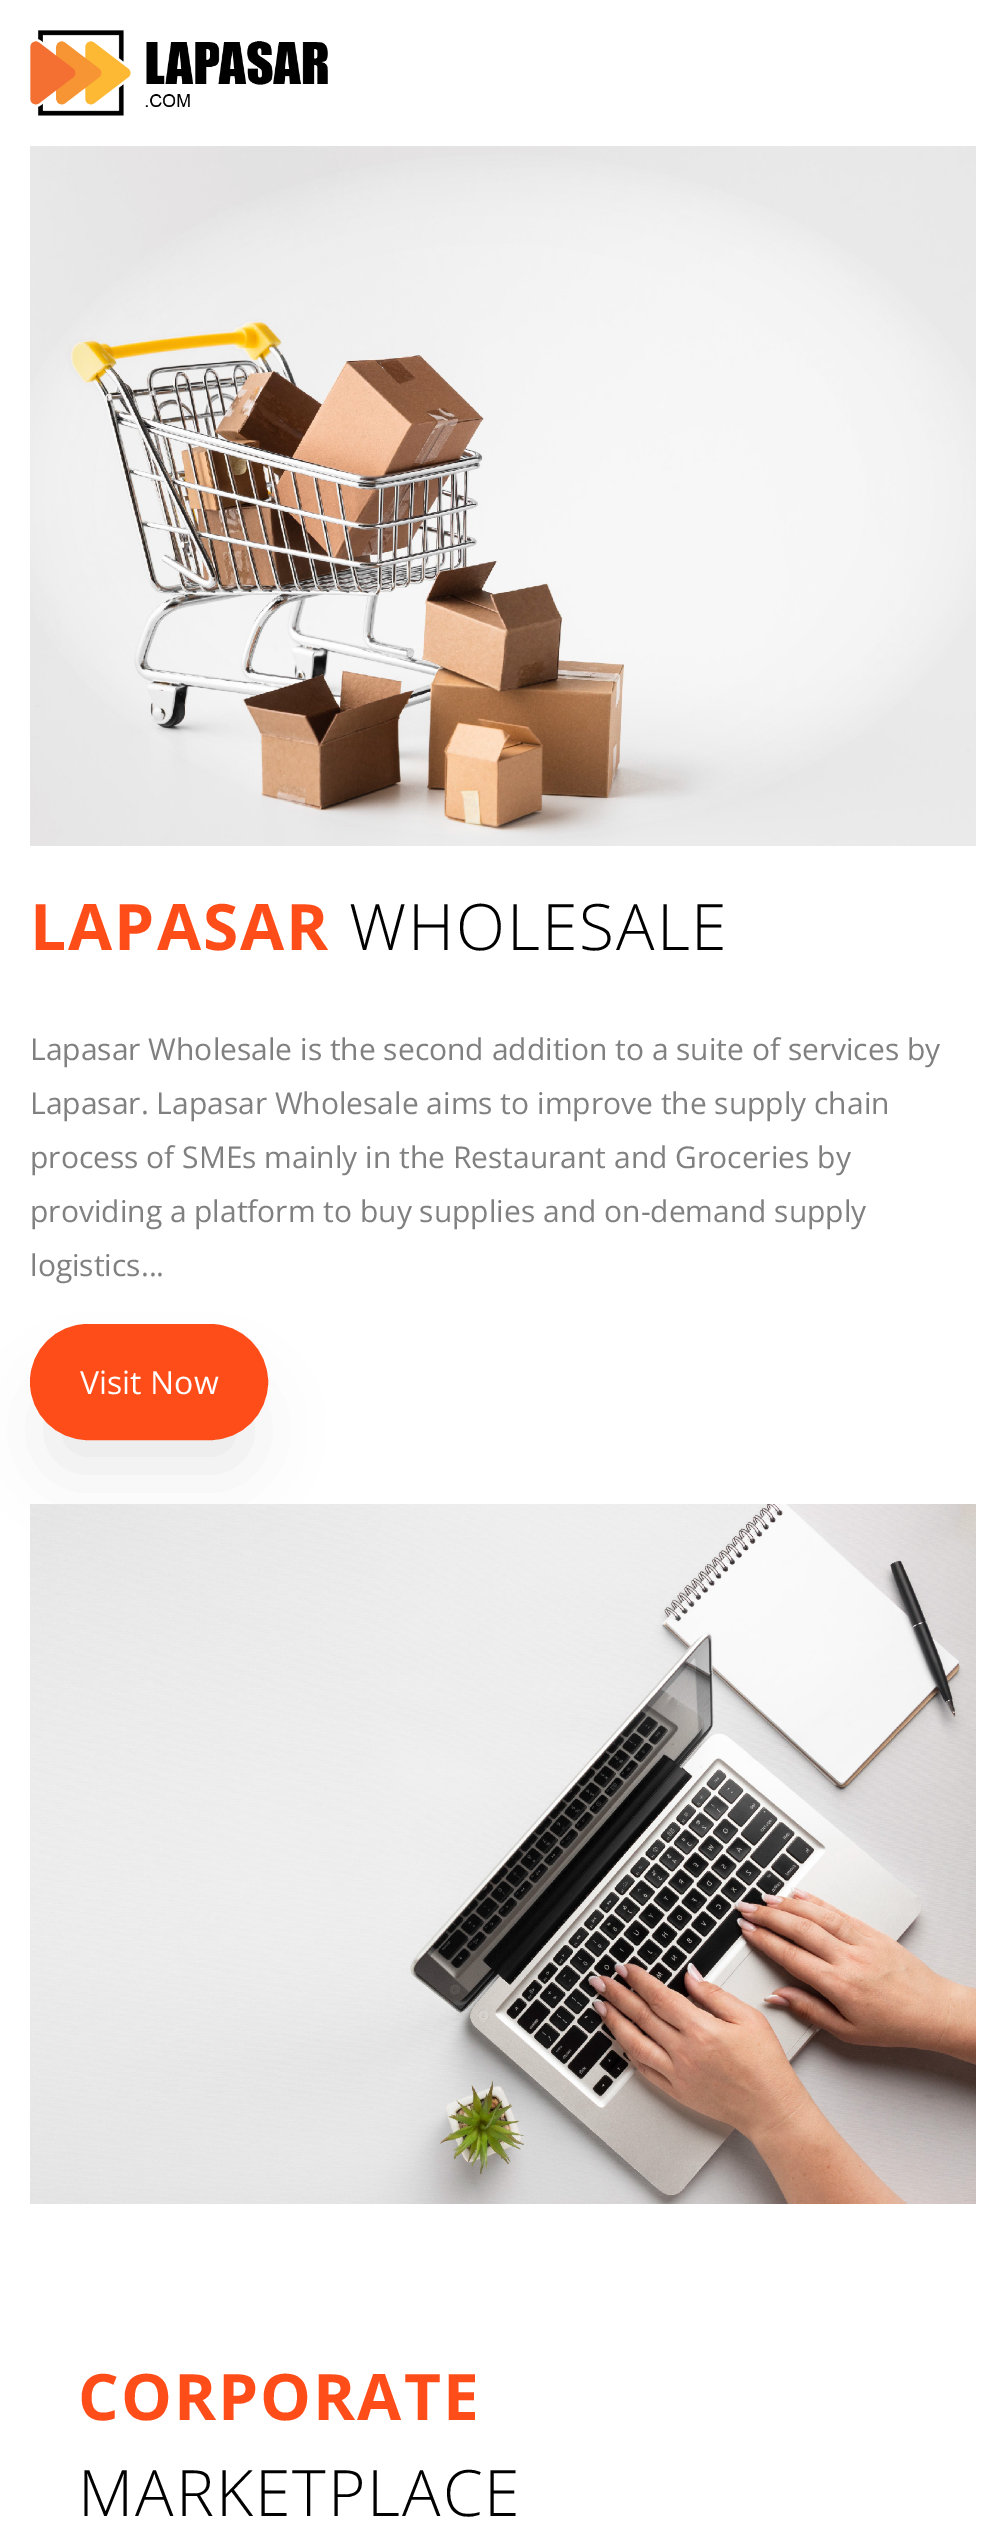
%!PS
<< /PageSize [1005 2538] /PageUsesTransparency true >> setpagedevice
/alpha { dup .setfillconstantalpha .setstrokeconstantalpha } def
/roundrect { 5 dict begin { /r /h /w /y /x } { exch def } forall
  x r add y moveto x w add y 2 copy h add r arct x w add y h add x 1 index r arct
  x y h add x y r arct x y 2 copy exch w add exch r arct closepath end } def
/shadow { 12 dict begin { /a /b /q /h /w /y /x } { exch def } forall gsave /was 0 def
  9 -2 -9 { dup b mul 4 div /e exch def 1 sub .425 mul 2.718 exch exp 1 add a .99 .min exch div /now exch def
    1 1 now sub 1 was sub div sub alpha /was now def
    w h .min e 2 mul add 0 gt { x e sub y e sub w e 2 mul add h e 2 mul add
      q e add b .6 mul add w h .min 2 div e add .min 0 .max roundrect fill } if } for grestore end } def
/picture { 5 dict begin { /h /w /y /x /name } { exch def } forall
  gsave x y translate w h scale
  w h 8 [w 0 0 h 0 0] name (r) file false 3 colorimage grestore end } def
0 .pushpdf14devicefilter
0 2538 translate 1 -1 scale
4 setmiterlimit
1 setgray
0 0 1005 2538 rectfill
(img1.rgb) 30 30 298 86 picture
(img2.rgb) 30 146 946 700 picture
/OpenSans-Bold [64 0 0 -64 0 0] selectfont
1 0.302 0.098 setrgbcolor
30 950 moveto 2 0 (LAPASAR) ashow
/OpenSans-Light [64 0 0 -64 0 0] selectfont
0 setgray
349 950 moveto 2 0 (WHOLESALE) ashow
/OpenSans-Regular [30 0 0 -30 0 0] selectfont
0.502 setgray
30 1060 moveto (Lapasar Wholesale is the second addition to a suite of services by) show
30 1114 moveto (Lapasar. Lapasar Wholesale aims to improve the supply chain) show
30 1168 moveto (process of SMEs mainly in the Restaurant and Groceries by) show
30 1222 moveto (providing a platform to buy supplies and on-demand supply) show
30 1276 moveto (logistics...) show
0 setgray
52 1394 194 72 36 36 0.09 shadow
1 0.302 0.098 setrgbcolor
31 1325 236 114 57 roundrect gsave fill grestore
2 setlinewidth
stroke
/OpenSans-Regular [32 0 0 -32 0 0] selectfont
1 setgray
80 1394 moveto (Visit Now) show
(img3.rgb) 30 1504 946 700 picture
/OpenSans-Bold [64 0 0 -64 0 0] selectfont
1 0.302 0.098 setrgbcolor
78 2420 moveto 2 0 (CORPORATE) ashow
/OpenSans-Light [64 0 0 -64 0 0] selectfont
0 setgray
78 2516 moveto 2 0 (MARKETPLACE) ashow
.poppdf14devicefilter showpage
